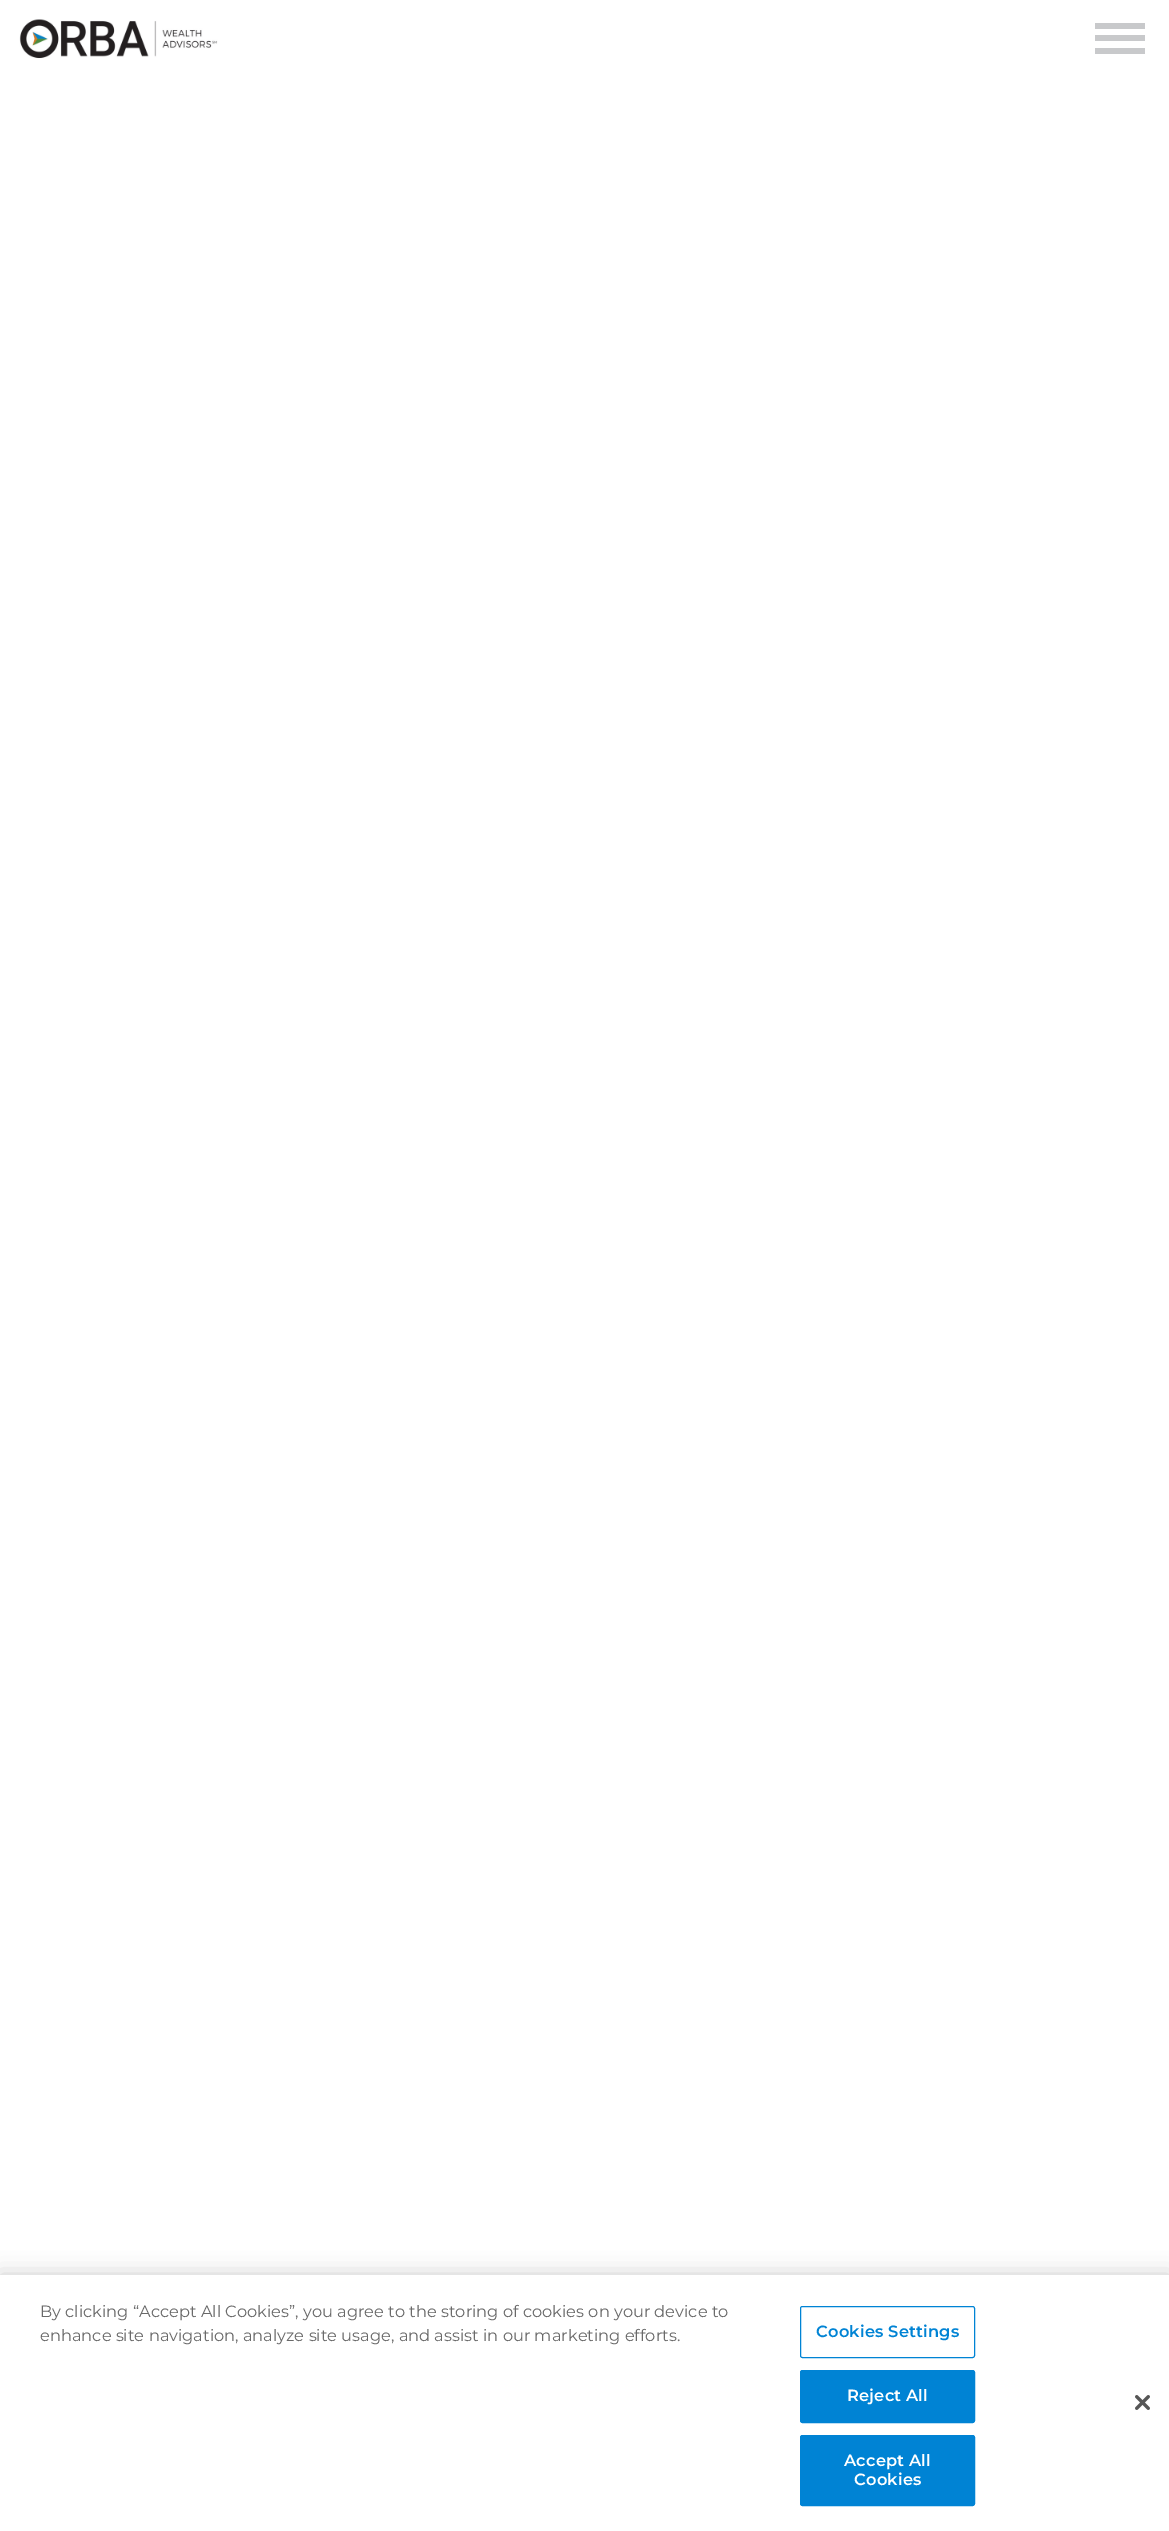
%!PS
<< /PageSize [1169 2531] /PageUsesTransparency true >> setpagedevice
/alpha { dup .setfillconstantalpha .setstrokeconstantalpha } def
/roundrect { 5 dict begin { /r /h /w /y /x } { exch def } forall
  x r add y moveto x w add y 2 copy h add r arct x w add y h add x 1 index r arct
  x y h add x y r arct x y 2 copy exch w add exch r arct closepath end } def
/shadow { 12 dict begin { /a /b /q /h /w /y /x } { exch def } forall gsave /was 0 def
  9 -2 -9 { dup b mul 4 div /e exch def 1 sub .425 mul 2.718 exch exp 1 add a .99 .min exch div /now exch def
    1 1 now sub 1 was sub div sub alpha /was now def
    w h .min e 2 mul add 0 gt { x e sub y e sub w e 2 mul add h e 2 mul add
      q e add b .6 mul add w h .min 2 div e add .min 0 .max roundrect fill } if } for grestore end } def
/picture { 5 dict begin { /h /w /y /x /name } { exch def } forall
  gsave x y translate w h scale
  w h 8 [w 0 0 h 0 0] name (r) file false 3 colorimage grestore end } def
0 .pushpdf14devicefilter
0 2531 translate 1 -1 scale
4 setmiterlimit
1 setgray
0 0 1169 2531 rectfill
(img1.rgb) 19 19 199 40 picture
0.784 0.788 0.796 setrgbcolor
1095 23 50 6 rectfill
1095 35 50 6 rectfill
1095 48 50 6 rectfill
0 setgray
0 2275 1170 256 0 11 0.2 shadow
1 setgray
0 2275 1169 256 rectfill
/Montserrat-Regular [16.25 0 0 -16.25 0 0] selectfont
0.412 setgray
40 2317 moveto (By clicking “Accept All Cookies”, you agree to the storing of cookies on your device to) show
40 2341 moveto (enhance site navigation, analyze site usage, and assist in our marketing efforts.) show
0 0.514 0.831 setrgbcolor
800.5 2306.5 174 51 2 roundrect stroke
/Montserrat-SemiBold [16.25 0 0 -16.25 0 0] selectfont
816 2337 moveto 0.2 0 (Cookies Settings) ashow
800.5 2370.5 174 52 2 roundrect gsave fill grestore
stroke
1 setgray
847 2401 moveto 0.2 0 (Reject All) ashow
0 0.514 0.831 setrgbcolor
800.5 2435.5 174 70 2 roundrect gsave fill grestore
stroke
1 setgray
844 2466 moveto 0.2 0 (Accept All) ashow
854 2485 moveto 0.2 0 (Cookies) ashow
(img2.rgb) 1135 2395 15 15 picture
.poppdf14devicefilter showpage
